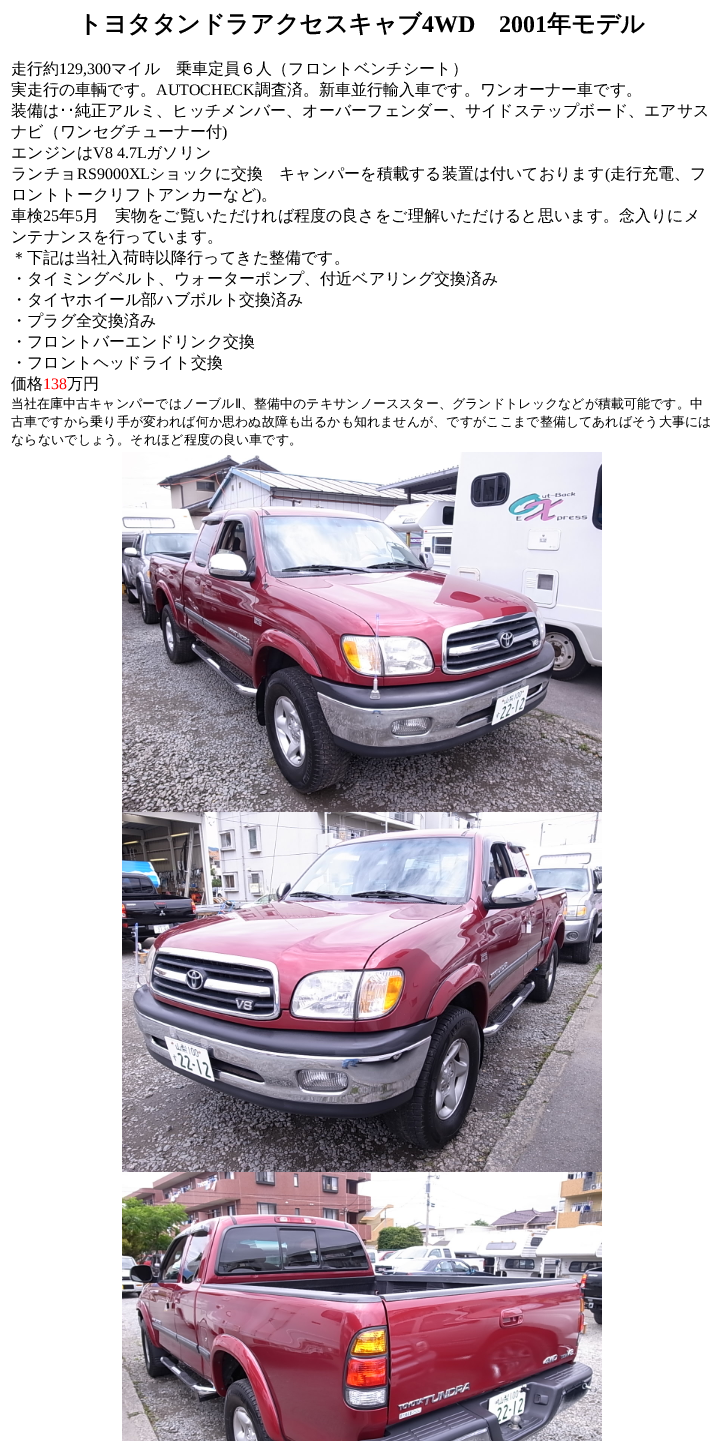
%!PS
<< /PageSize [723 1441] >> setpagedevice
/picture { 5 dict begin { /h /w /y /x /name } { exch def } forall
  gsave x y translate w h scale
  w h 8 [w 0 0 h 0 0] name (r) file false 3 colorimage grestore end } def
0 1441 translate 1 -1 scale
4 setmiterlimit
1 setgray
0 0 723 1441 rectfill
/WenQuanYiZenHei-Bold [24 0 0 -24 0 0] selectfont
0 setgray
78 32 moveto (トヨタタンドラアクセスキャブ) show
/LiberationSerif-Bold [24 0 0 -24 0 0] selectfont
422 32 moveto (4WD) show
499 32 moveto (2001) show
/WenQuanYiZenHei-Bold [24 0 0 -24 0 0] selectfont
547 32 moveto (年モデル) show
/WenQuanYiZenHei-Medium [16 0 0 -16 0 0] selectfont
11 74 moveto (走行約) show
/LiberationSerif-Regular [16 0 0 -16 0 0] selectfont
59 74 moveto (129,300) show
/WenQuanYiZenHei-Medium [16 0 0 -16 0 0] selectfont
111 74 moveto (マイル　乗車定員６人（フロントベンチシート）) show
11 95 moveto (実走行の車輌です。) show
/LiberationSerif-Regular [16 0 0 -16 0 0] selectfont
156 95 moveto (AUTOCHECK) show
/WenQuanYiZenHei-Medium [16 0 0 -16 0 0] selectfont
255 95 moveto (調査済。新車並行輸入車です。ワンオーナー車です。) show
11 116 moveto (装備は) show
/IPAGothic-Regular [16 0 0 -16 0 0] selectfont
59 116 moveto (･･) show
/WenQuanYiZenHei-Medium [16 0 0 -16 0 0] selectfont
75 116 moveto (純正アルミ、ヒッチメンバー、オーバーフェンダー、サイドステップボード、エアサス) show
11 137 moveto (ナビ（ワンセグチューナー付) show
/LiberationSerif-Regular [16 0 0 -16 0 0] selectfont
222 137 moveto (\)) show
/WenQuanYiZenHei-Medium [16 0 0 -16 0 0] selectfont
11 158 moveto (エンジンは) show
/LiberationSerif-Regular [16 0 0 -16 0 0] selectfont
93 158 moveto (V8 4.7L) show
/WenQuanYiZenHei-Medium [16 0 0 -16 0 0] selectfont
146 158 moveto (ガソリン) show
11 179 moveto (ランチョ) show
/LiberationSerif-Regular [16 0 0 -16 0 0] selectfont
77 179 moveto (RS9000XL) show
/WenQuanYiZenHei-Medium [16 0 0 -16 0 0] selectfont
149 179 moveto (ショックに交換　キャンパーを積載する装置は付いております) show
/LiberationSerif-Regular [16 0 0 -16 0 0] selectfont
605 179 moveto (\() show
/WenQuanYiZenHei-Medium [16 0 0 -16 0 0] selectfont
610 179 moveto (走行充電、フ) show
11 200 moveto (ロントトークリフトアンカーなど) show
/LiberationSerif-Regular [16 0 0 -16 0 0] selectfont
256 200 moveto (\)) show
/WenQuanYiZenHei-Medium [16 0 0 -16 0 0] selectfont
261 200 moveto (。) show
11 221 moveto (車検) show
/LiberationSerif-Regular [16 0 0 -16 0 0] selectfont
43 221 moveto (25) show
/WenQuanYiZenHei-Medium [16 0 0 -16 0 0] selectfont
59 221 moveto (年) show
/LiberationSerif-Regular [16 0 0 -16 0 0] selectfont
75 221 moveto (5) show
/WenQuanYiZenHei-Medium [16 0 0 -16 0 0] selectfont
83 221 moveto (月　実物をご覧いただければ程度の良さをご理解いただけると思います。念入りにメ) show
11 242 moveto (ンテナンスを行っています。) show
11 263 moveto (＊下記は当社入荷時以降行ってきた整備です。) show
11 284 moveto (・タイミングベルト、ウォーターポンプ、付近ベアリング交換済み) show
11 305 moveto (・タイヤホイール部ハブボルト交換済み) show
11 326 moveto (・プラグ全交換済み) show
11 347 moveto (・フロントバーエンドリンク交換) show
11 368 moveto (・フロントヘッドライト交換) show
11 389 moveto (価格) show
/LiberationSerif-Regular [16 0 0 -16 0 0] selectfont
1 0 0 setrgbcolor
43 389 moveto (138) show
/WenQuanYiZenHei-Medium [16 0 0 -16 0 0] selectfont
0 setgray
67 389 moveto (万円) show
/WenQuanYiZenHei-Medium [13 0 0 -13 0 0] selectfont
11 408 moveto (当社在庫中古キャンパーではノーブル) show
/DejaVuSans-Regular [13 0 0 -13 0 0] selectfont
235 408 moveto (Ⅱ) show
/WenQuanYiZenHei-Medium [13 0 0 -13 0 0] selectfont
241 408 moveto (、整備中のテキサンノーススター、グランドトレックなどが積載可能です。中) show
11 426 moveto (古車ですから乗り手が変われば何か思わぬ故障も出るかも知れませんが、ですがここまで整備してあればそう大事には) show
11 444 moveto (ならないでしょう。それほど程度の良い車です。) show
(img1.rgb) 122 452 480 360 picture
(img2.rgb) 122 812 480 360 picture
(img3.rgb) 122 1172 480 269 picture
showpage
